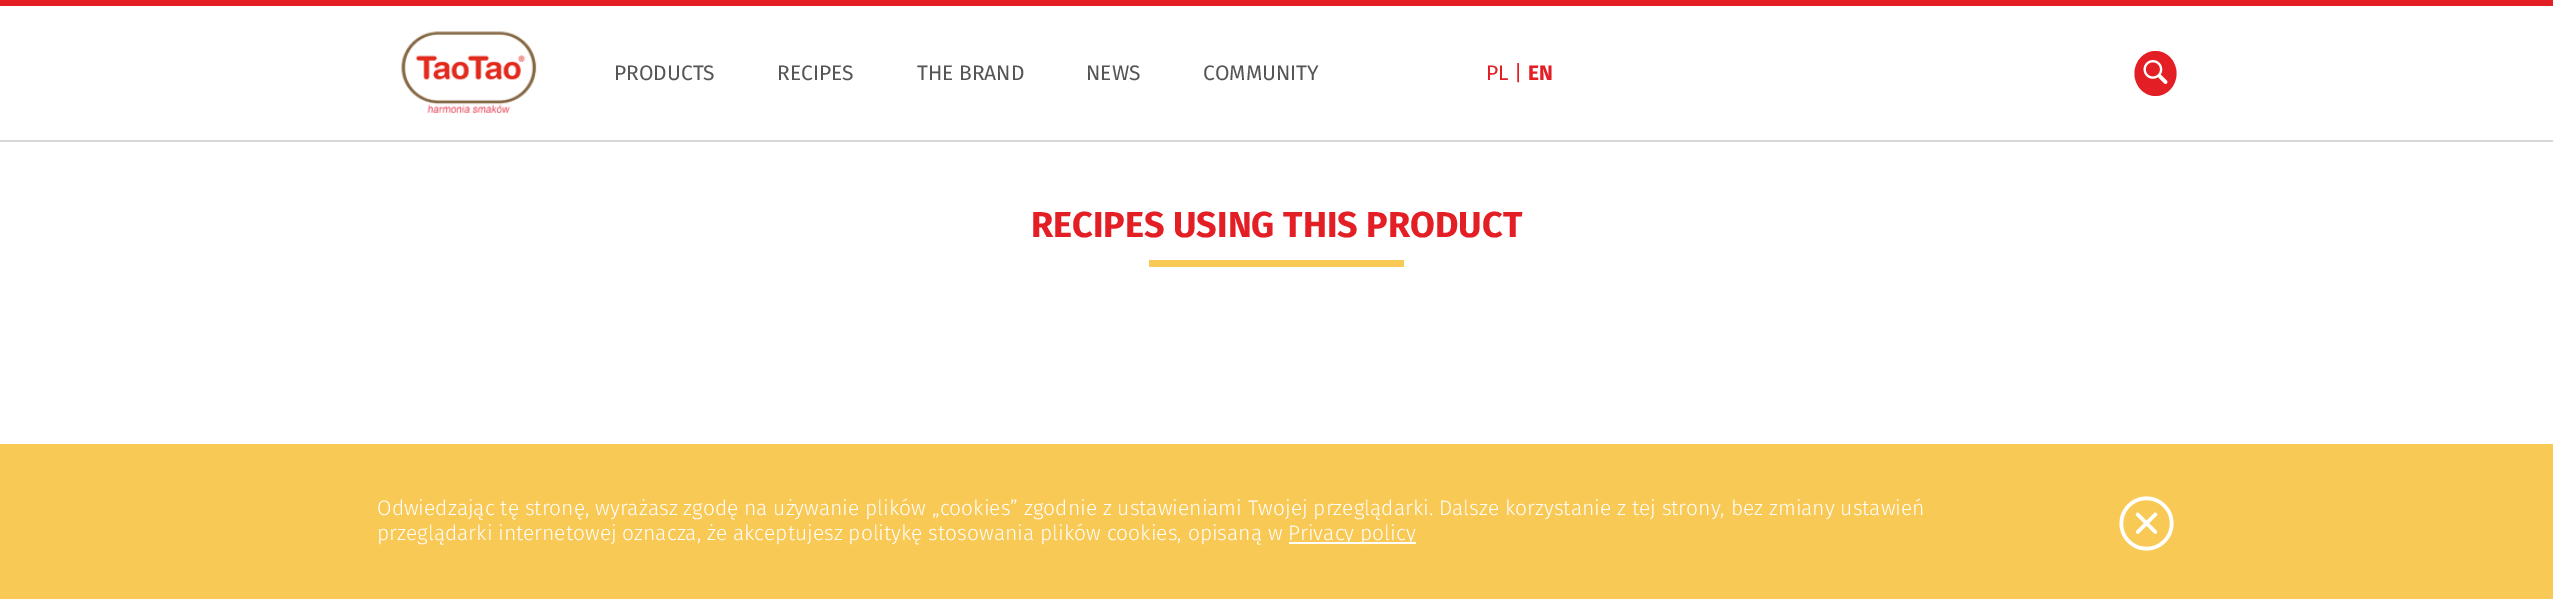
%!PS
<< /PageSize [2553 599] >> setpagedevice
/picture { 5 dict begin { /h /w /y /x /name } { exch def } forall
  gsave x y translate w h scale
  w h 8 [w 0 0 h 0 0] name (r) file false 3 colorimage grestore end } def
0 599 translate 1 -1 scale
4 setmiterlimit
1 setgray
0 0 2553 599 rectfill
0.89 0.118 0.141 setrgbcolor
0 0 2553 6 rectfill
0.843 setgray
0 140 2553 2 rectfill
(img1.rgb) 401 31 136 82 picture
/FiraSans-Regular [21 0 0 -21 0 0] selectfont
0.333 setgray
614 80 moveto (PRODUCTS) show
777 80 moveto (RECIPES) show
917 80 moveto (THE BRAND) show
1086 80 moveto (NEWS) show
1203 80 moveto (COMMUNITY) show
0.89 0.118 0.141 setrgbcolor
1486 80 moveto (PL |) show
/FiraSans-Bold [21 0 0 -21 0 0] selectfont
1528 80 moveto (EN) show
newpath 2155.5 51 moveto 2167 51 2176.5 61 2176.5 73.5 curveto 2176.5 86 2167 96 2155.5 96 curveto 2144 96 2134.5 86 2134.5 73.5 curveto 2134.5 61 2144 51 2155.5 51 curveto closepath fill
(img2.rgb) 2143 60 25 24 picture
/FiraSans-Bold [36 0 0 -36 0 0] selectfont
1031 237 moveto (RECIPES USING THIS PRODUCT) show
0.976 0.788 0.337 setrgbcolor
1149 260 255 7 rectfill
0 444 2553 155 rectfill
/FiraSans-Light [21 0 0 -21 0 0] selectfont
1 setgray
377 515 moveto (Odwiedzając tę stronę, wyrażasz zgodę na używanie plików „cookies” zgodnie z ustawieniami Twojej przeglądarki. Dalsze korzystanie z tej strony, bez zmiany ustawień) show
377 540 moveto (przeglądarki internetowej oznacza, że akceptujesz politykę stosowania plików cookies, opisaną w) show
1289 542 127 2 rectfill
1288 540 moveto (Privacy policy) show
(img3.rgb) 2119 496 55 55 picture
showpage
